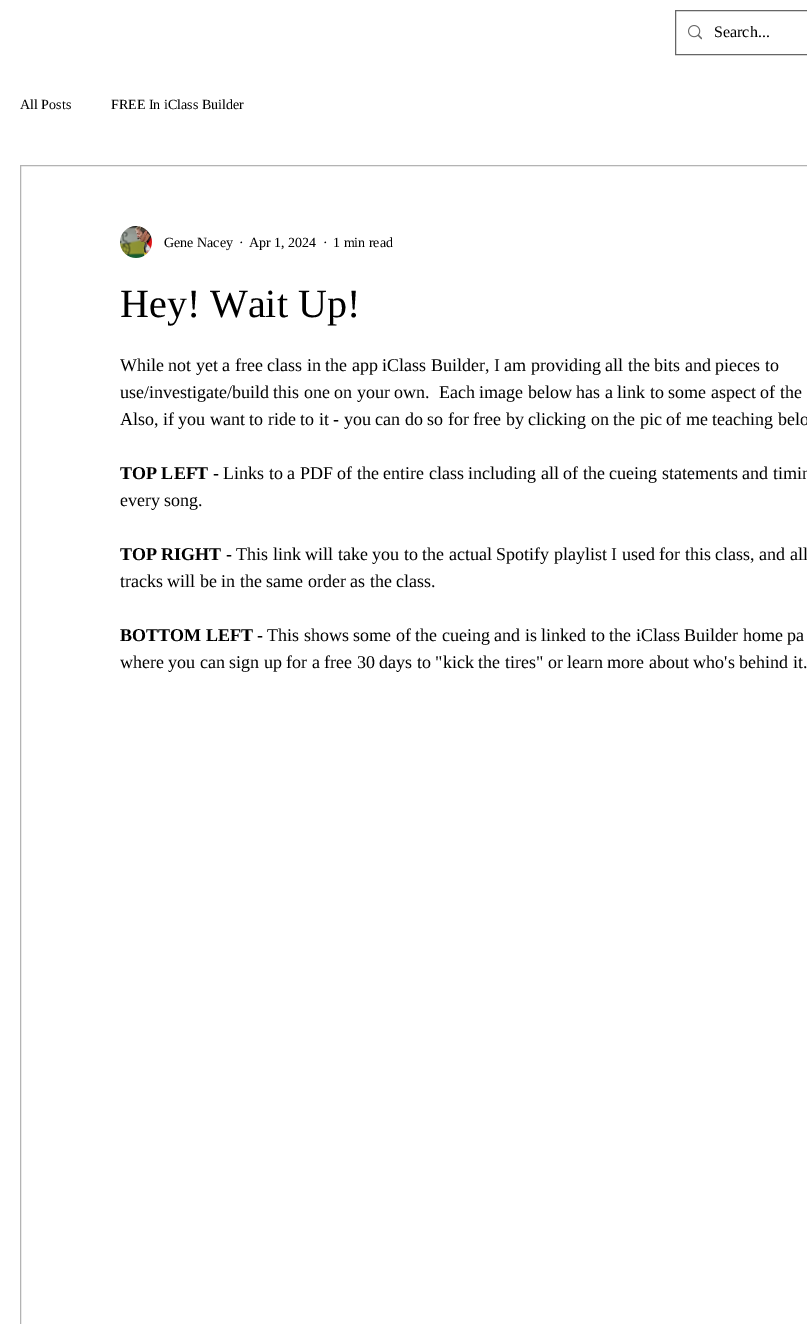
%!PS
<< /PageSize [807 1324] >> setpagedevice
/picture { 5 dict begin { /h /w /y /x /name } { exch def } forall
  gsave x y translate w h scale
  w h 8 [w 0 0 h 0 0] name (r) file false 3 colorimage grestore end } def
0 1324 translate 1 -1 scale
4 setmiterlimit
1 setgray
0 0 807 1324 rectfill
0.4 setgray
675.5 10.5 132 44 rectstroke
(img1.rgb) 688 25 14 15 picture
/LiberationSerif-Regular [16 0 0 -16 0 0] selectfont
0 setgray
714 37 moveto (Search...) show
/LiberationSerif-Regular [14 0 0 -14 0 0] selectfont
20 109 moveto (All Posts) show
111 109 moveto (FREE In iClass Builder) show
0.702 setgray
20.5 165.5 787 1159 rectstroke
(img2.rgb) 120 226 32 32 picture
0 setgray
164 247 moveto (Gene Nacey) show
239 247 moveto (·) show
249 247 moveto (Apr 1, 2024) show
323 247 moveto (·) show
333 247 moveto (1 min read) show
/LiberationSerif-Regular [40 0 0 -40 0 0] selectfont
120 317 moveto (Hey! Wait Up!) show
/LiberationSerif-Regular [18 0 0 -18 0 0] selectfont
120 371 moveto (While not yet a free class in the app iClass Builder, I am providing all the bits and pieces to) show
120 398 moveto (use/investigate/build this one on your own.  Each image below has a link to some aspect of the) show
120 425 moveto (Also, if you want to ride to it - you can do so for free by clicking on the pic of me teaching belo) show
/LiberationSerif-Bold [18 0 0 -18 0 0] selectfont
120 479 moveto (TOP LEFT) show
/LiberationSerif-Regular [18 0 0 -18 0 0] selectfont
213 479 moveto (- Links to a PDF of the entire class including all of the cueing statements and timin) show
120 506 moveto (every song.) show
/LiberationSerif-Bold [18 0 0 -18 0 0] selectfont
120 560 moveto (TOP RIGHT) show
/LiberationSerif-Regular [18 0 0 -18 0 0] selectfont
226 560 moveto (- This link will take you to the actual Spotify playlist I used for this class, and all) show
120 587 moveto (tracks will be in the same order as the class.) show
/LiberationSerif-Bold [18 0 0 -18 0 0] selectfont
120 641 moveto (BOTTOM LEFT) show
/LiberationSerif-Regular [18 0 0 -18 0 0] selectfont
257 641 moveto (- This shows some of the cueing and is linked to the iClass Builder home pa) show
120 668 moveto (where you can sign up for a free 30 days to "kick the tires" or learn more about who's behind it.) show
showpage
